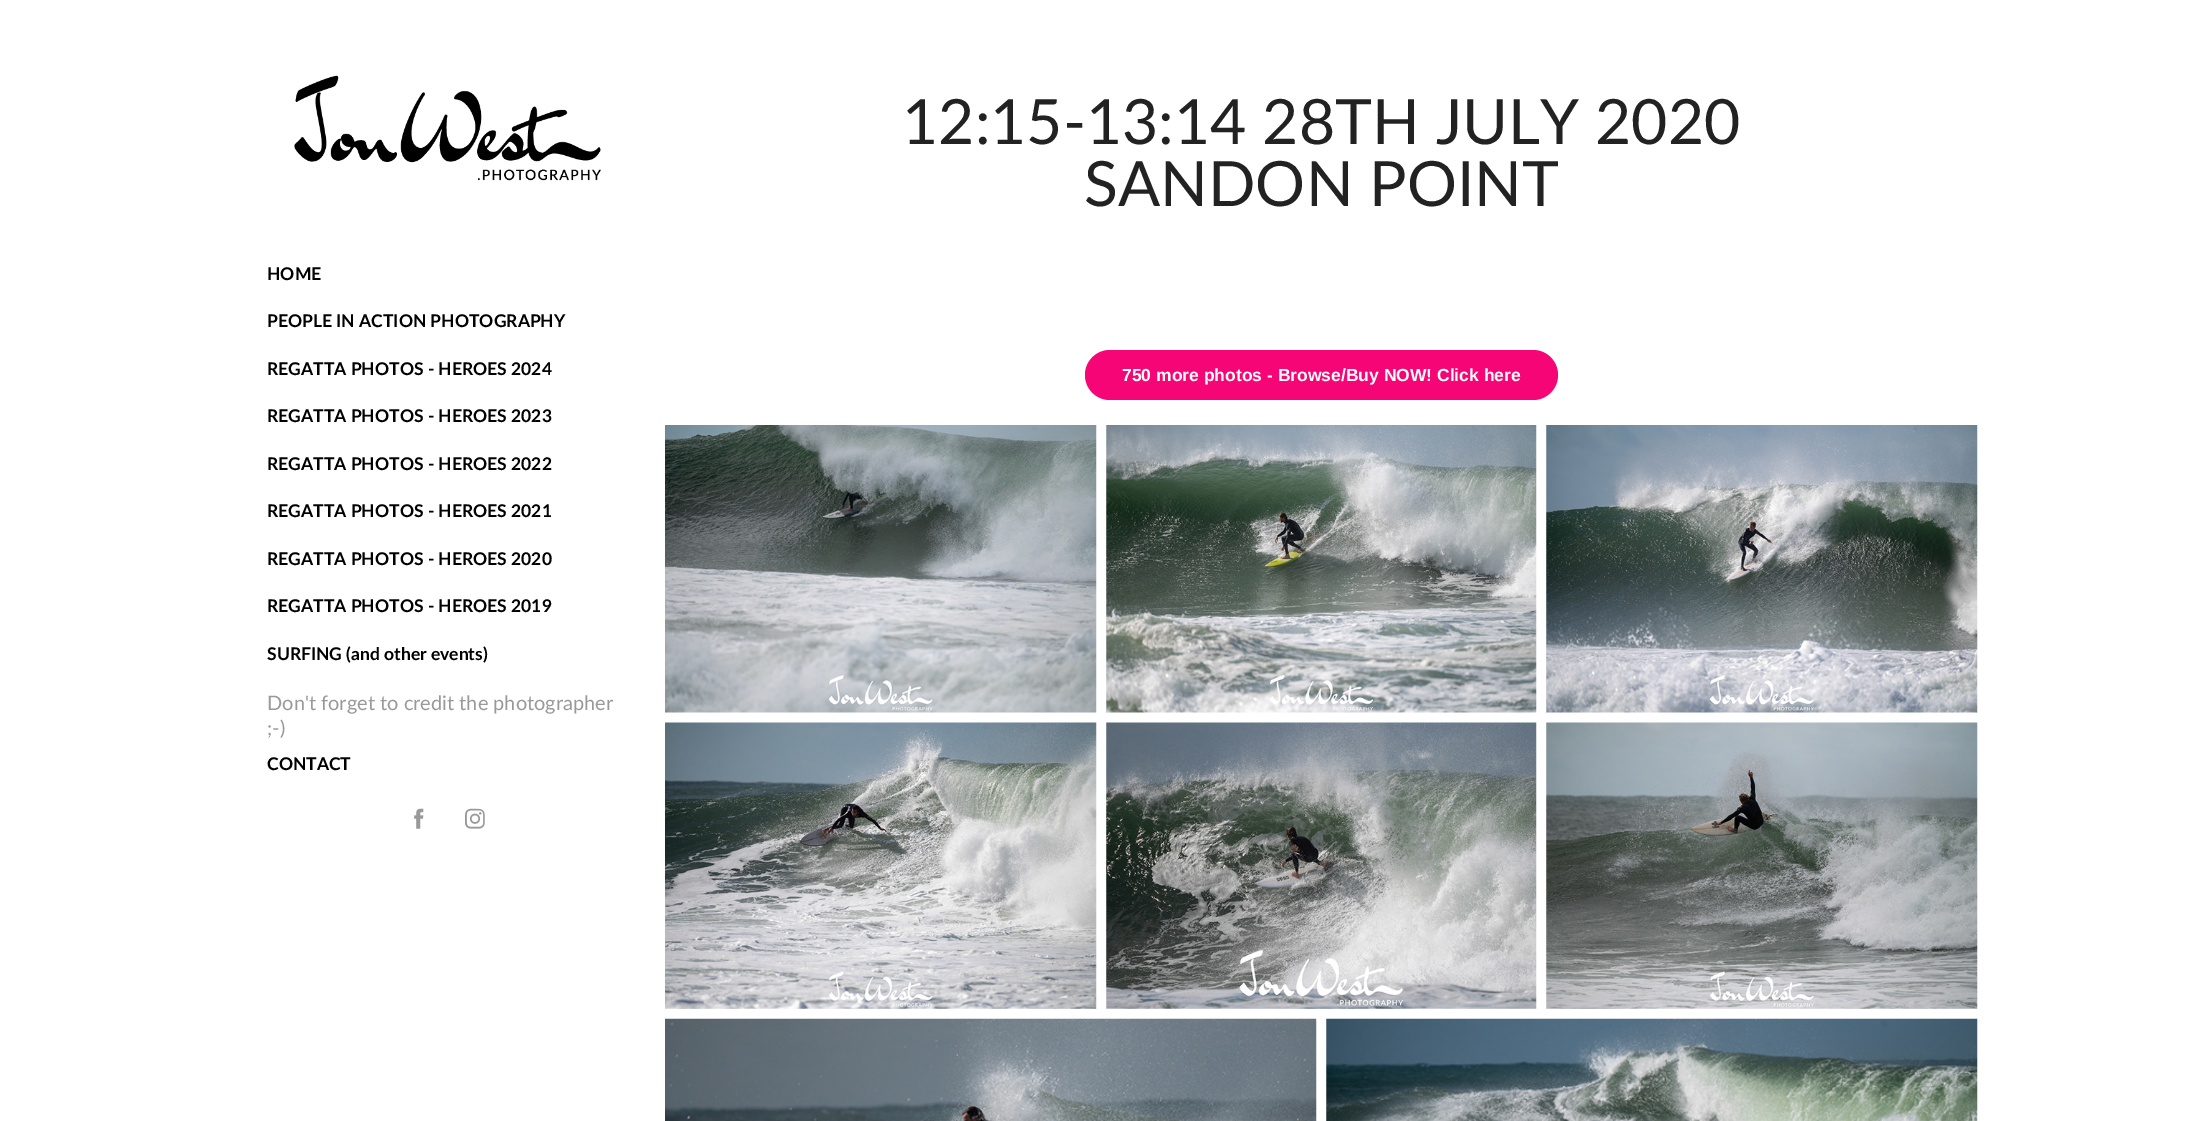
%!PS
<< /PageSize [2204 1121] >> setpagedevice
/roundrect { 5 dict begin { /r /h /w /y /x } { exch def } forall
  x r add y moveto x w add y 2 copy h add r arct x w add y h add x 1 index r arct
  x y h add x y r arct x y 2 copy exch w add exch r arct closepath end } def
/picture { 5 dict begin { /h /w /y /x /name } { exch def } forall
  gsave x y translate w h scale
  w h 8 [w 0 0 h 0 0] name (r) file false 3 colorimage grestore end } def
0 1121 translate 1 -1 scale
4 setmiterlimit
1 setgray
0 0 2204 1121 rectfill
(img1.rgb) 294 75 307 106 picture
/Lato-Bold [17.5 0 0 -17.5 0 0] selectfont
0 setgray
267 280 moveto (HOME) show
267 327 moveto (PEOPLE IN ACTION PHOTOGRAPHY) show
267 375 moveto (REGATTA PHOTOS - HEROES 2024) show
267 422 moveto (REGATTA PHOTOS - HEROES 2023) show
267 470 moveto (REGATTA PHOTOS - HEROES 2022) show
267 517 moveto (REGATTA PHOTOS - HEROES 2021) show
267 565 moveto (REGATTA PHOTOS - HEROES 2020) show
267 612 moveto (REGATTA PHOTOS - HEROES 2019) show
267 660 moveto (SURFING \(and other events\)) show
/Lato-Regular [20 0 0 -20 0 0] selectfont
0.6 setgray
267 710 moveto (Don't forget to credit the photographer) show
267 735 moveto (;-\)) show
/Lato-Bold [17.5 0 0 -17.5 0 0] selectfont
0 setgray
267 770 moveto (CONTACT) show
(img2.rgb) 414 808 10 21 picture
(img3.rgb) 465 808 20 21 picture
/Lato-Regular [62.5 0 0 -62.5 0 0] selectfont
0.133 setgray
902 144 moveto (12:15-13:14 28TH JULY 2020) show
1084 206 moveto (SANDON POINT) show
0.961 0.02 0.459 setrgbcolor
1085 350 473 50 25 roundrect fill
/LiberationSans-Bold [17.5 0 0 -17.5 0 0] selectfont
1 setgray
1122 381 moveto (750 more photos - Browse/Buy NOW! Click here) show
(img4.rgb) 665 425 432 288 picture
(img5.rgb) 1106 425 431 288 picture
(img6.rgb) 1546 425 432 288 picture
(img7.rgb) 665 722 432 287 picture
(img8.rgb) 1106 722 431 287 picture
(img9.rgb) 1546 722 432 287 picture
(img10.rgb) 665 1018 652 103 picture
(img11.rgb) 1326 1018 652 103 picture
showpage
